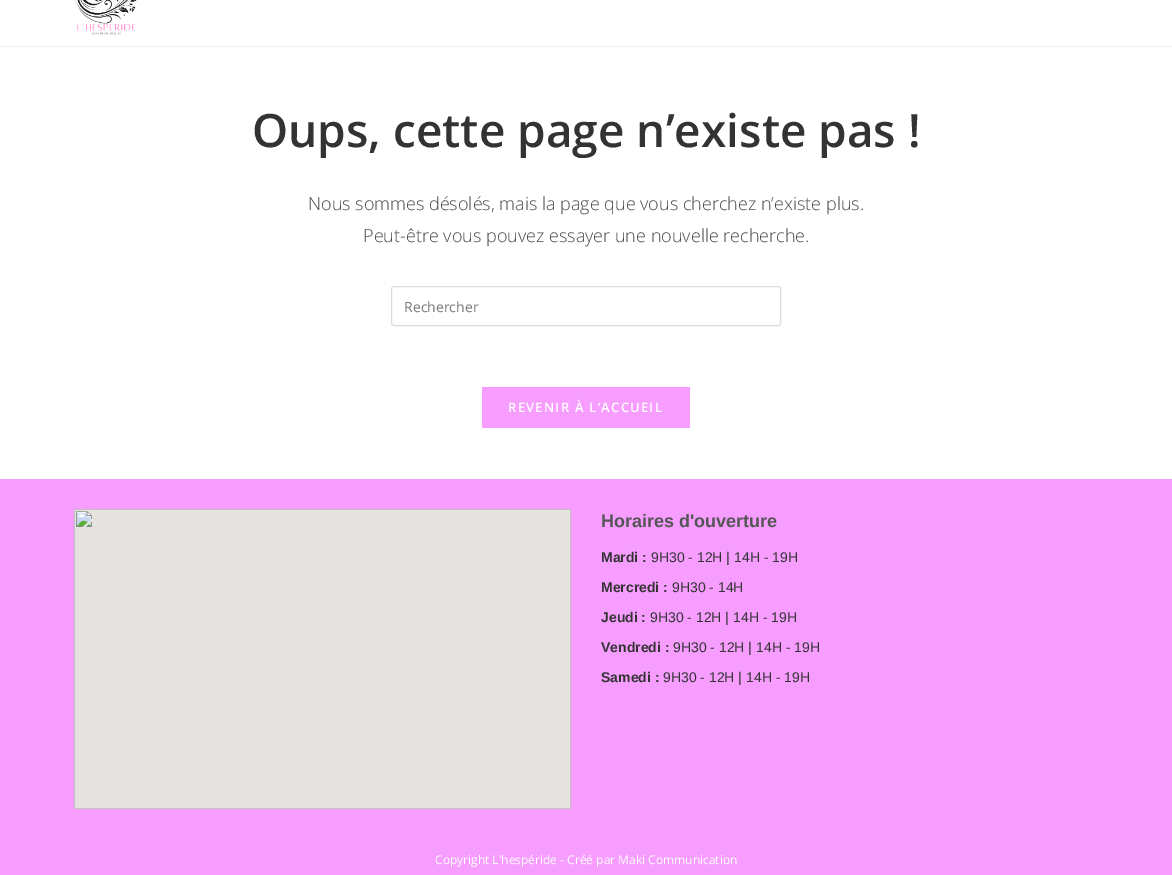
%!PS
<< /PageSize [1172 875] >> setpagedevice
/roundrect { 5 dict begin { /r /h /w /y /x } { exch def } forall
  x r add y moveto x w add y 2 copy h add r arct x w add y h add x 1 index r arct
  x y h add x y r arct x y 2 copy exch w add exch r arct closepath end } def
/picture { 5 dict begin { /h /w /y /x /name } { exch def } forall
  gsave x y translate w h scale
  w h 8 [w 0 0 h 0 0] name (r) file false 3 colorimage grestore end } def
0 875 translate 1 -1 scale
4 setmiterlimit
1 setgray
0 0 1172 875 rectfill
0.945 setgray
0 46 1172 1 rectfill
(img1.rgb) 75 0 62 35 picture
/OpenSans-SemiBold [46 0 0 -46 0 0] selectfont
0.2 setgray
252 147 moveto (Oups, cette page n’existe pas !) show
/OpenSans-Light [18 0 0 -18 0 0] selectfont
0.29 setgray
308 210 moveto (Nous sommes désolés, mais la page que vous cherchez n’existe plus.) show
363 242 moveto (Peut-être vous pouvez essayer une nouvelle recherche.) show
0.867 setgray
391.5 286.5 389 39 2.5 roundrect stroke
/OpenSans-Regular [14 0 0 -14 0 0] selectfont
0.459 setgray
404 312 moveto (Rechercher) show
0.969 0.616 1 setrgbcolor
482 387 208 41 rectfill
/OpenSans-SemiBold [13 0 0 -13 0 0] selectfont
1 setgray
508 412 moveto 1.25 0 (REVENIR À L’ACCUEIL) ashow
0.969 0.616 1 setrgbcolor
0 479 1172 396 rectfill
(img2.rgb) 74 509 497 300 picture
/LiberationSans-Bold [18 0 0 -18 0 0] selectfont
0.333 setgray
601 527 moveto (Horaires d'ouverture) show
/LiberationSans-Bold [14 0 0 -14 0 0] selectfont
0.2 setgray
601 562 moveto (Mardi :) show
/LiberationSans-Regular [14 0 0 -14 0 0] selectfont
651 562 moveto (9H30 - 12H | 14H - 19H) show
/LiberationSans-Bold [14 0 0 -14 0 0] selectfont
601 592 moveto (Mercredi :) show
/LiberationSans-Regular [14 0 0 -14 0 0] selectfont
672 592 moveto (9H30 - 14H) show
/LiberationSans-Bold [14 0 0 -14 0 0] selectfont
601 622 moveto (Jeudi :) show
/LiberationSans-Regular [14 0 0 -14 0 0] selectfont
650 622 moveto (9H30 - 12H | 14H - 19H) show
/LiberationSans-Bold [14 0 0 -14 0 0] selectfont
601 652 moveto (Vendredi :) show
/LiberationSans-Regular [14 0 0 -14 0 0] selectfont
673 652 moveto (9H30 - 12H | 14H - 19H) show
/LiberationSans-Bold [14 0 0 -14 0 0] selectfont
601 682 moveto (Samedi :) show
/LiberationSans-Regular [14 0 0 -14 0 0] selectfont
663 682 moveto (9H30 - 12H | 14H - 19H) show
/OpenSans-Regular [12 0 0 -12 0 0] selectfont
1 setgray
435 864 moveto (Copyright L'hespéride - Créé par Maki Communication) show
showpage
